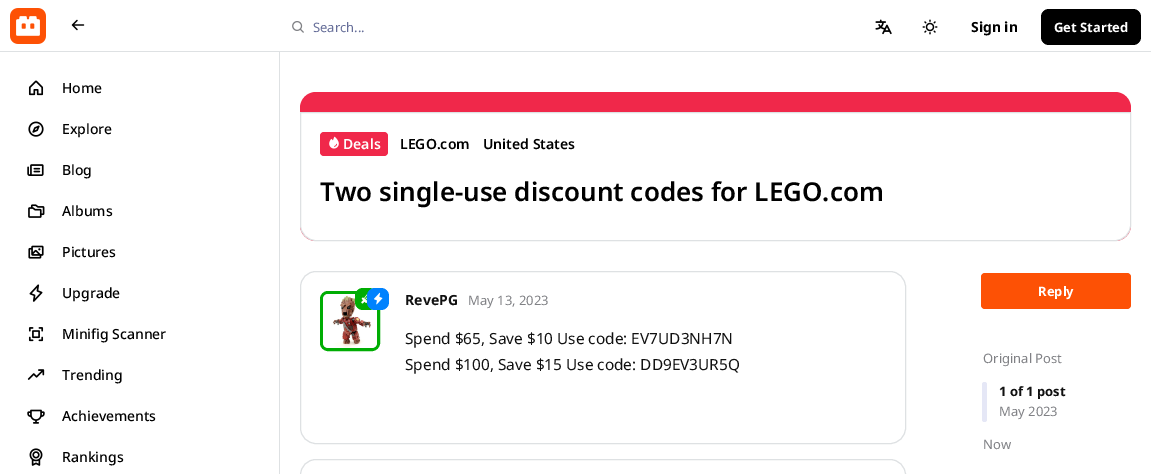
%!PS
<< /PageSize [1151 474] >> setpagedevice
/roundrect { 5 dict begin { /r /h /w /y /x } { exch def } forall
  x r add y moveto x w add y 2 copy h add r arct x w add y h add x 1 index r arct
  x y h add x y r arct x y 2 copy exch w add exch r arct closepath end } def
/picture { 5 dict begin { /h /w /y /x /name } { exch def } forall
  gsave x y translate w h scale
  w h 8 [w 0 0 h 0 0] name (r) file false 3 colorimage grestore end } def
0 474 translate 1 -1 scale
4 setmiterlimit
1 setgray
0 0 1151 474 rectfill
0.871 0.882 0.89 setrgbcolor
0 51 1151 1 rectfill
(img1.rgb) 71 19 14 12 picture
(img2.rgb) 10 8 36 36 picture
(img3.rgb) 292 21 12 12 picture
/NotoSans-Regular [13 0 0 -13 0 0] selectfont
0.4 0.431 0.6 setrgbcolor
313 32 moveto (Search...) show
(img4.rgb) 875 19 17 16 picture
(img5.rgb) 922 19 16 16 picture
/NotoSans-Bold [14 0 0 -14 0 0] selectfont
0 setgray
971 32 moveto (Sign in) show
1041 9 100 36 8 roundrect fill
/NotoSans-Bold [13 0 0 -13 0 0] selectfont
1 setgray
1054 32 moveto (Get Started) show
0.871 0.882 0.89 setrgbcolor
279 52 1 422 rectfill
(img6.rgb) 28 80 16 16 picture
/NotoSans-Medium [14 0 0 -14 0 0] selectfont
0 setgray
62 93 moveto (Home) show
(img7.rgb) 28 121 16 16 picture
62 134 moveto (Explore) show
(img8.rgb) 27 164 17 12 picture
62 175 moveto (Blog) show
(img9.rgb) 28 204 17 14 picture
62 216 moveto (Albums) show
(img10.rgb) 28 245 16 14 picture
62 257 moveto (Pictures) show
(img11.rgb) 29 284 14 18 picture
62 298 moveto (Upgrade) show
(img12.rgb) 28 327 16 15 picture
62 339 moveto (Minifig Scanner) show
(img13.rgb) 27 369 18 11 picture
62 380 moveto (Trending) show
(img14.rgb) 27 409 18 15 picture
62 421 moveto (Achievements) show
(img15.rgb) 29 448 14 18 picture
62 462 moveto (Rankings) show
0.941 0.157 0.29 setrgbcolor
300 92 831 149 16 roundrect fill
1 setgray
newpath 300.5 112.5 moveto 1130.5 112.5 lineto 1130.5 225 lineto 1130.5 233.5 1123.5 240.5 1115 240.5 curveto 316 240.5 lineto 307.5 240.5 300.5 233.5 300.5 225 curveto closepath gsave fill grestore
0.871 0.882 0.89 setrgbcolor
stroke
0.941 0.157 0.29 setrgbcolor
320 132 68 24 4 roundrect fill
(img16.rgb) 329 136 10 13 picture
/NotoSans-SemiBold [14 0 0 -14 0 0] selectfont
1 setgray
343 149 moveto (Deals) show
0 setgray
400 149 moveto (LEGO.com) show
483 149 moveto (United States) show
/NotoSans-SemiBold [26 0 0 -26 0 0] selectfont
320 201 moveto (Two single-use discount codes for LEGO.com) show
0.871 0.882 0.89 setrgbcolor
300.5 271.5 605 172 15.5 roundrect stroke
0 0.678 0.012 setrgbcolor
3 setlinewidth
321.5 292.5 57 57 6.5 roundrect stroke
(img19.rgb) 323 294 54 54 picture
355 288 22 22 8 roundrect fill
(img17.rgb) 361 294 7 10 picture
0 0.51 0.996 setrgbcolor
367 288 22 22 8 roundrect fill
(img18.rgb) 374 292 9 13 picture
/NotoSans-Bold [14 0 0 -14 0 0] selectfont
0.067 setgray
405 305 moveto (RevePG) show
/NotoSans-Regular [13 0 0 -13 0 0] selectfont
0.502 0.506 0.522 setrgbcolor
468 305 moveto (May 13, 2023) show
/NotoSans-Regular [15.4 0 0 -15.4 0 0] selectfont
0.067 setgray
405 344 moveto (Spend $65, Save $10 Use code: EV7UD3NH7N) show
405 370 moveto (Spend $100, Save $15 Use code: DD9EV3UR5Q) show
0.871 0.882 0.89 setrgbcolor
1 setlinewidth
300.5 459.5 605 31 15.5 roundrect stroke
0.992 0.318 0.02 setrgbcolor
981 273 150 36 4 roundrect fill
/NotoSans-Bold [13 0 0 -13 0 0] selectfont
1 setgray
1038 296 moveto (Reply) show
/NotoSans-Regular [13 0 0 -13 0 0] selectfont
0.502 0.506 0.522 setrgbcolor
983 363 moveto (Original Post) show
0.898 0.906 0.965 setrgbcolor
982 382 5 40 2.5 roundrect fill
/NotoSans-Bold [13 0 0 -13 0 0] selectfont
0.067 setgray
999 396 moveto (1 of 1 post) show
/NotoSans-Regular [13 0 0 -13 0 0] selectfont
0.502 0.506 0.522 setrgbcolor
999 416 moveto (May 2023) show
983 449 moveto (Now) show
showpage
